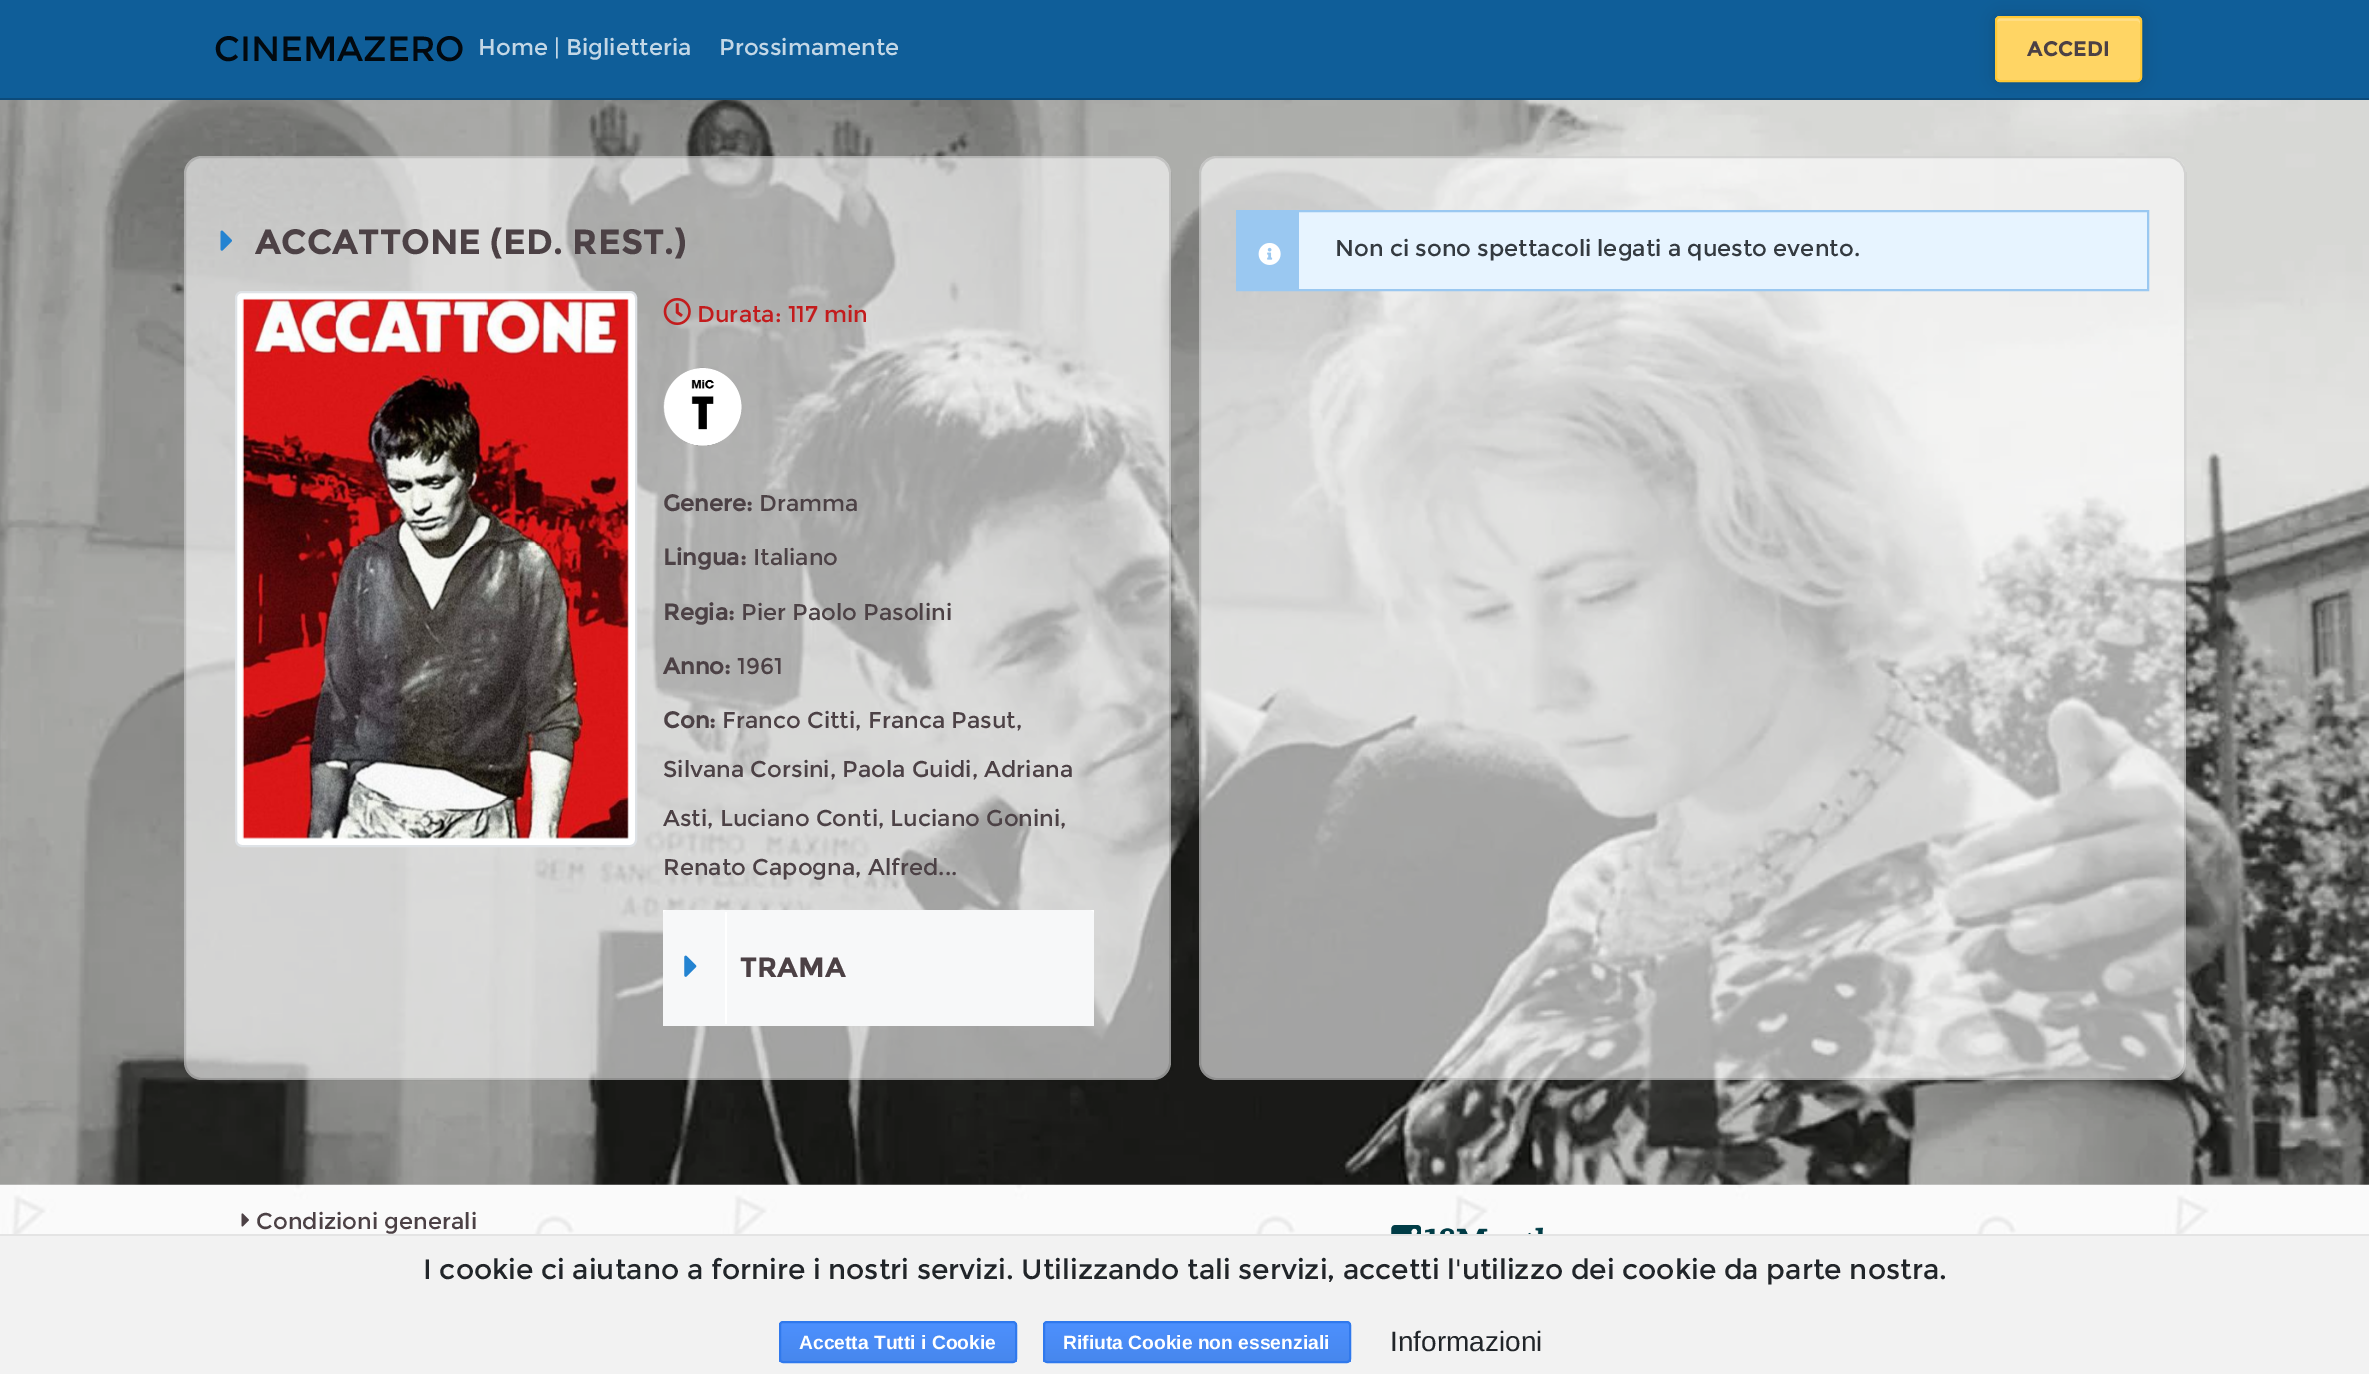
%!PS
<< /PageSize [2369 1374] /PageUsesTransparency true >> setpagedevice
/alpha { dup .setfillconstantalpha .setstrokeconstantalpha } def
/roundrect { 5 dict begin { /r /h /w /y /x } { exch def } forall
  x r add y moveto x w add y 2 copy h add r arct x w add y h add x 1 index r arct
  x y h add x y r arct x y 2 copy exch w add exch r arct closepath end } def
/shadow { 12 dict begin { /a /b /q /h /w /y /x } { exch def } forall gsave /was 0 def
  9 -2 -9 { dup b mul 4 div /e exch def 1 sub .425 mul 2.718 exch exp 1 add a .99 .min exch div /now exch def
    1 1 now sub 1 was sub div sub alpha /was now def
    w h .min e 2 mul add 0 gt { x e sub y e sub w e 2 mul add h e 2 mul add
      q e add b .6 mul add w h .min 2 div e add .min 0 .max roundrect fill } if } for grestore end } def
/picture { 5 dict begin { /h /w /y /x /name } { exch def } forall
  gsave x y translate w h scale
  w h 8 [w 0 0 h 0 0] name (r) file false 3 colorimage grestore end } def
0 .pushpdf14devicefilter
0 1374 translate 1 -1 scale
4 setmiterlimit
1 setgray
0 0 2369 1374 rectfill
0.059 0.369 0.6 setrgbcolor
0 0 2369 98 rectfill
0.047 0.294 0.482 setrgbcolor
0 98 2369 2 rectfill
/Montserrat-Regular [35 0 0 -35 0 0] selectfont
0.008 0.035 0.059 setrgbcolor
214 61 moveto (CINEMAZERO) show
/Montserrat-Regular [22.75 0 0 -22.75 0 0] selectfont
0.765 0.843 0.902 setrgbcolor
478 55 moveto (Home | Biglietteria) show
719 55 moveto (Prossimamente) show
(img1.rgb) 0 100 2369 1085 picture
0 setgray
1995 16 147 66 5 9 0.16 shadow
1 0.835 0.392 setrgbcolor
1995 16 147 66 5 roundrect fill
1 0.867 0.514 setrgbcolor
newpath 2000 21 moveto 2137 21 lineto 2139 21 2140 23 2140 24 curveto 2140 22 lineto 2140 20 2138 18 2136 18 curveto 2001 18 lineto 1999 18 1997 20 1997 22 curveto 1997 24 lineto 1997 23 1998 21 2000 21 curveto closepath fill
1 0.788 0.212 setrgbcolor
2 setlinewidth
1996 17 145 64 4 roundrect stroke
/Montserrat-Bold [21 0 0 -21 0 0] selectfont
0.298 0.255 0.271 setrgbcolor
2027 56 moveto (ACCEDI) show
0.6 alpha
1 setgray
184 156 987 924 18 roundrect fill
0.12 alpha
0 setgray
185 157 985 922 17 roundrect stroke
1 alpha
(img2.rgb) 220 230 12 21 picture
/Montserrat-Bold [35 0 0 -35 0 0] selectfont
0.298 0.255 0.271 setrgbcolor
255 254 moveto (ACCATTONE \(ED. REST.\)) show
1 setgray
236 292 400 554 6 roundrect gsave fill grestore
0.871 0.886 0.902 setrgbcolor
stroke
(img3.rgb) 242 298 387 541 picture
(img4.rgb) 663 297 28 29 picture
/Montserrat-Regular [22.75 0 0 -22.75 0 0] selectfont
0.765 0.11 0.114 setrgbcolor
697 322 moveto (Durata: 117 min) show
(img5.rgb) 663 367 79 79 picture
/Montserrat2-Bold [22.75 0 0 -22.75 0 0] selectfont
0.298 0.255 0.271 setrgbcolor
663 511 moveto (Genere:) show
/Montserrat-Regular [22.75 0 0 -22.75 0 0] selectfont
759 511 moveto (Dramma) show
/Montserrat2-Bold [22.75 0 0 -22.75 0 0] selectfont
663 565 moveto (Lingua:) show
/Montserrat-Regular [22.75 0 0 -22.75 0 0] selectfont
753 565 moveto (Italiano) show
/Montserrat2-Bold [22.75 0 0 -22.75 0 0] selectfont
663 620 moveto (Regia:) show
/Montserrat-Regular [22.75 0 0 -22.75 0 0] selectfont
741 620 moveto (Pier Paolo Pasolini) show
/Montserrat2-Bold [22.75 0 0 -22.75 0 0] selectfont
663 674 moveto (Anno:) show
/Montserrat-Regular [22.75 0 0 -22.75 0 0] selectfont
737 674 moveto (1961) show
/Montserrat2-Bold [22.75 0 0 -22.75 0 0] selectfont
663 728 moveto (Con:) show
/Montserrat-Regular [22.75 0 0 -22.75 0 0] selectfont
722 728 moveto (Franco Citti, Franca Pasut,) show
663 777 moveto (Silvana Corsini, Paola Guidi, Adriana) show
663 826 moveto (Asti, Luciano Conti, Luciano Gonini,) show
663 875 moveto (Renato Capogna, Alfred...) show
1 setgray
663 910 431 5 rectfill
0.969 0.973 0.976 setrgbcolor
newpath 668 910 moveto 1089 910 lineto 1092 910 1094 912 1094 915 curveto 1094 1026 lineto 663 1026 lineto 663 915 lineto 663 912 665 910 668 910 curveto closepath fill
1 setgray
725 912 2 112 rectfill
(img6.rgb) 684 955 13 22 picture
/Montserrat-Bold [28 0 0 -28 0 0] selectfont
0.298 0.255 0.271 setrgbcolor
740 977 moveto (TRAMA) show
0.6 alpha
1 setgray
1199 156 987 924 18 roundrect fill
0.12 alpha
0 setgray
1200 157 985 922 17 roundrect stroke
1 alpha
0.906 0.957 1 setrgbcolor
1299 212 848 77 rectfill
0.604 0.784 0.945 setrgbcolor
1237 211 911 79 rectstroke
1238 212 61 77 rectfill
(img7.rgb) 1258 243 23 22 picture
/Montserrat-Regular [22.75 0 0 -22.75 0 0] selectfont
0.204 0.227 0.251 setrgbcolor
1335 256 moveto (Non ci sono spettacoli legati a questo evento.) show
(img8.rgb) 0 1184 2369 50 picture
(img9.rgb) 241 1213 8 14 picture
0.298 0.255 0.271 setrgbcolor
256 1229 moveto (Condizioni generali) show
(img10.rgb) 1391 1225 152 9 picture
0.949 setgray
0 1236 2369 138 rectfill
0.894 setgray
0 1234 2369 2 rectfill
/Montserrat-Regular [28 0 0 -28 0 0] selectfont
0.129 0.145 0.161 setrgbcolor
423 1279 moveto (I cookie ci aiutano a fornire i nostri servizi. Utilizzando tali servizi, accetti l'utilizzo dei cookie da parte nostra.) show
gsave
779 1321 238 42 4 roundrect clip newpath
gsave newpath 779 1323 moveto 1017 1323 lineto 1017 1362 lineto 779 1362 lineto closepath clip newpath
<< /ShadingType 2 /ColorSpace /DeviceRGB /Coords [898 1323 898 1362] /Extend [true true] /Function << /FunctionType 2 /Domain [0 1] /C0 [0.302 0.565 0.996] /C1 [0.278 0.529 0.929] /N 1 >> >> shfill grestore
grestore
0.188 0.475 0.929 setrgbcolor
780 1322 236 40 3 roundrect stroke
/LiberationSans-Bold [19.25 0 0 -19.25 0 0] selectfont
1 setgray
799 1349 moveto (Accetta Tutti i Cookie) show
gsave
1043 1321 308 42 4 roundrect clip newpath
gsave newpath 1043 1323 moveto 1351 1323 lineto 1351 1362 lineto 1043 1362 lineto closepath clip newpath
<< /ShadingType 2 /ColorSpace /DeviceRGB /Coords [1197 1323 1197 1362] /Extend [true true] /Function << /FunctionType 2 /Domain [0 1] /C0 [0.302 0.565 0.996] /C1 [0.278 0.529 0.929] /N 1 >> >> shfill grestore
grestore
0.188 0.475 0.929 setrgbcolor
1044 1322 306 40 3 roundrect stroke
1 setgray
1063 1349 moveto (Rifiuta Cookie non essenziali) show
/LiberationSans-Regular [28 0 0 -28 0 0] selectfont
0.129 0.145 0.161 setrgbcolor
1390 1351 moveto (Informazioni) show
.poppdf14devicefilter showpage
